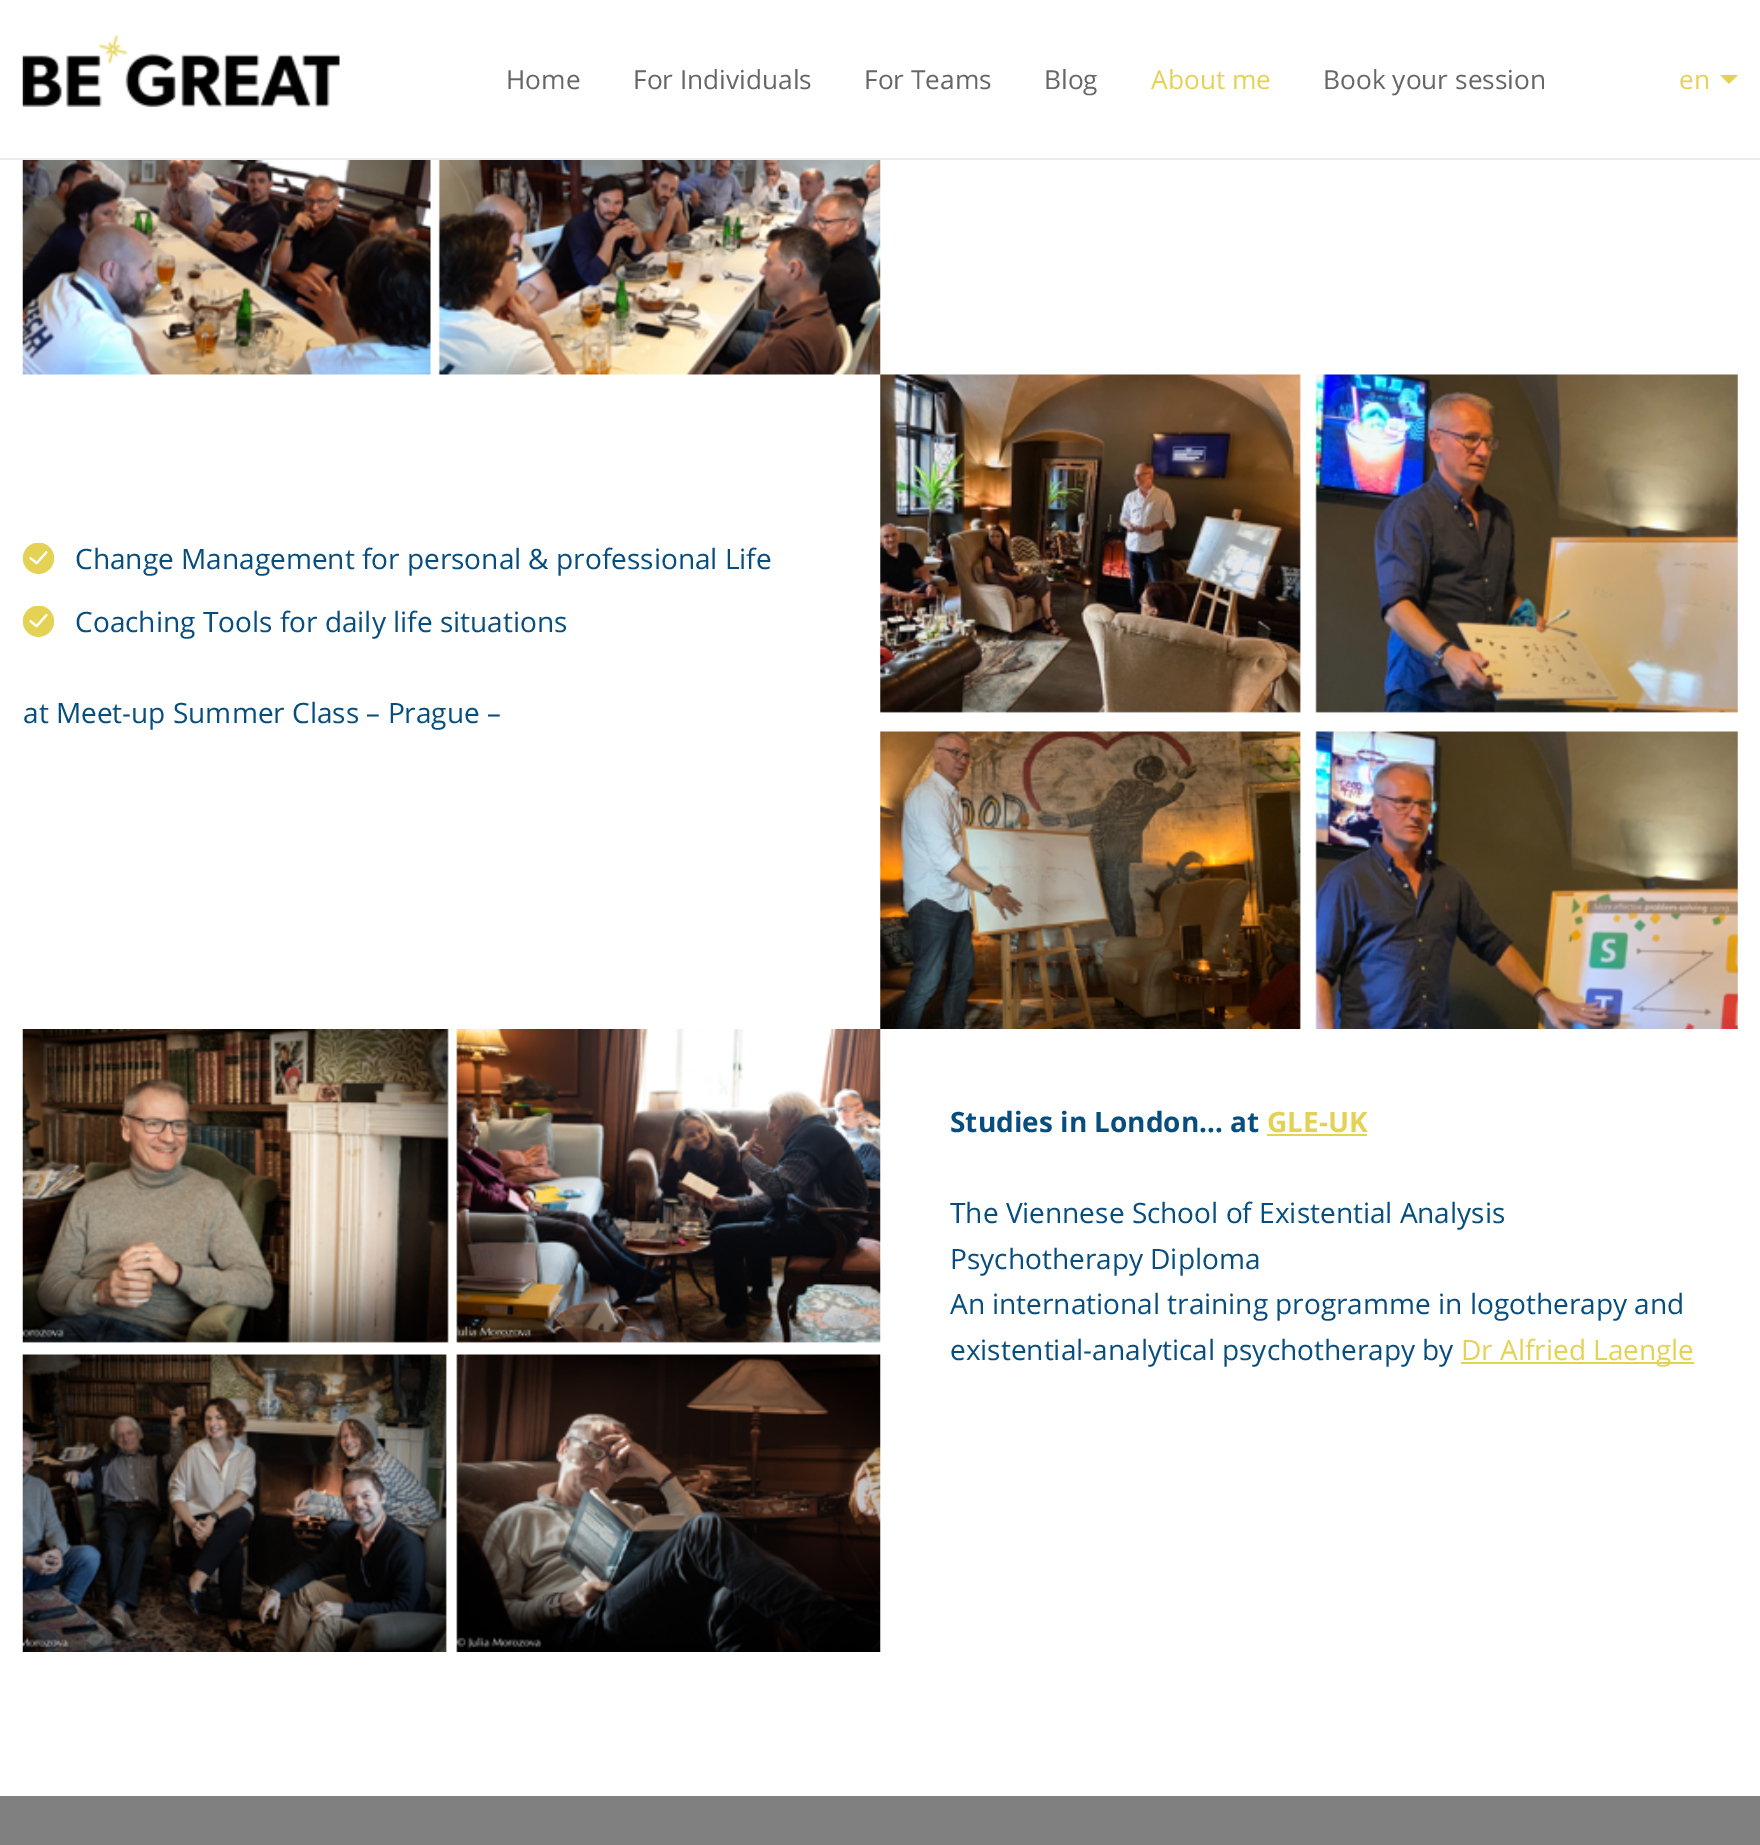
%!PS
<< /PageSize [1760 1845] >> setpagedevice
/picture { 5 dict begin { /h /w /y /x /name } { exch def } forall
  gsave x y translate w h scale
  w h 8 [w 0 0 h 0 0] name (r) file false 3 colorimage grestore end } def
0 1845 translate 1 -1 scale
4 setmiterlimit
1 setgray
0 0 1760 1845 rectfill
0.922 setgray
0 158 1760 2 rectfill
(img1.rgb) 22 35 318 72 picture
/OpenSans-Regular [26.25 0 0 -26.25 0 0] selectfont
0.4 setgray
506 89 moveto (Home) show
633 89 moveto (For Individuals) show
864 89 moveto (For Teams) show
1044 89 moveto (Blog) show
0.894 0.824 0.333 setrgbcolor
1151 89 moveto (About me) show
0.4 setgray
1323 89 moveto (Book your session) show
0.894 0.824 0.333 setrgbcolor
1679 89 moveto (en) show
newpath 1720 75 moveto 1738 75 lineto 1729 84 lineto closepath fill
(img2.rgb) 22 160 859 215 picture
(img3.rgb) 23 543 31 31 picture
/OpenSans-Regular [28 0 0 -28 0 0] selectfont
0.027 0.302 0.494 setrgbcolor
75 569 moveto (Change Management for personal & professional Life) show
(img3.rgb) 23 606 31 31 picture
75 632 moveto (Coaching Tools for daily life situations) show
23 723 moveto (at Meet-up Summer Class – Prague –) show
(img4.rgb) 880 374 858 655 picture
(img5.rgb) 22 1029 859 623 picture
/OpenSans-Bold [28 0 0 -28 0 0] selectfont
950 1132 moveto (Studies in London… at) show
0.894 0.824 0.333 setrgbcolor
1267 1132 moveto (GLE-UK) show
1267 1134 100 2 rectfill
/OpenSans-Regular [28 0 0 -28 0 0] selectfont
0.027 0.302 0.494 setrgbcolor
950 1223 moveto (The Viennese School of Existential Analysis) show
950 1269 moveto (Psychotherapy Diploma) show
950 1314 moveto (An international training programme in logotherapy and) show
950 1360 moveto (existential-analytical psychotherapy by) show
0.894 0.824 0.333 setrgbcolor
1461 1362 233 2 rectfill
1461 1360 moveto (Dr Alfried Laengle) show
0.502 setgray
0 1796 1760 49 rectfill
showpage
